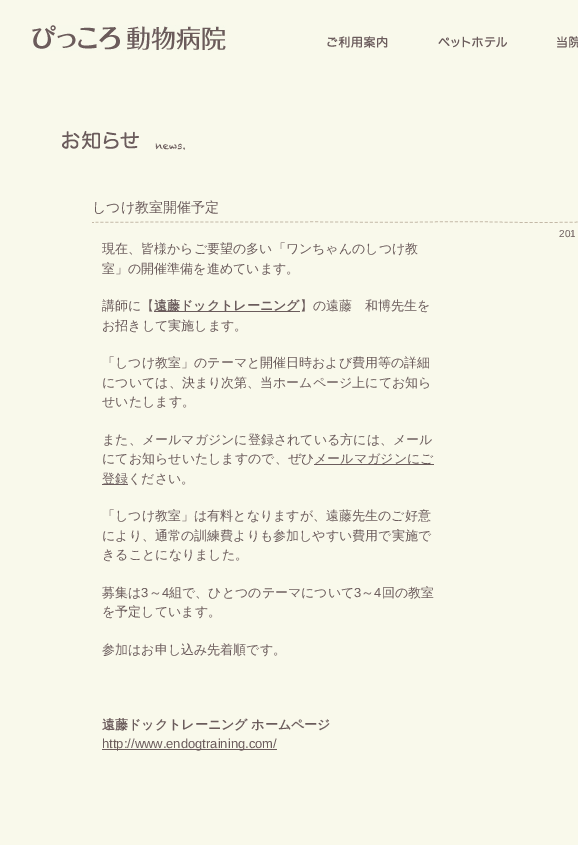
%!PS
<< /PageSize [578 845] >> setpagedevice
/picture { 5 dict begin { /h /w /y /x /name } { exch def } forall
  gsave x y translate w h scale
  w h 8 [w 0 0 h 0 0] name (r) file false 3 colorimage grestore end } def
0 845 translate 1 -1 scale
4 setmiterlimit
0.976 0.976 0.922 setrgbcolor
0 0 578 845 rectfill
(img1.rgb) 32 25 194 26 picture
(img2.rgb) 327 36 61 12 picture
(img3.rgb) 438 36 69 12 picture
(img4.rgb) 557 36 21 12 picture
(img5.rgb) 62 131 123 19 picture
(img6.rgb) 92 221 486 2 picture
/WenQuanYiZenHei-Medium [14 0 0 -14 0 0] selectfont
0.42 0.361 0.361 setrgbcolor
92 212 moveto (しつけ教室開催予定) show
/LiberationSans-Regular [10 0 0 -10 0 0] selectfont
559 237 moveto (201) show
/WenQuanYiZenHei-Medium [13 0 0 -13 0 0] selectfont
102 253 moveto (現在、皆様からご要望の多い「ワンちゃんのしつけ教) show
102 273 moveto (室」の開催準備を進めています。) show
102 310 moveto (講師に【) show
154 311 146 1 rectfill
/WenQuanYiZenHei-Bold [13 0 0 -13 0 0] selectfont
154 310 moveto (遠藤ドックトレーニング) show
/WenQuanYiZenHei-Medium [13 0 0 -13 0 0] selectfont
300 310 moveto (】の遠藤　和博先生を) show
102 330 moveto (お招きして実施します。) show
102 367 moveto (「しつけ教室」のテーマと開催日時および費用等の詳細) show
102 387 moveto (については、決まり次第、当ホームページ上にてお知ら) show
102 406 moveto (せいたします。) show
102 444 moveto (また、メールマガジンに登録されている方には、メール) show
102 463 moveto (にてお知らせいたしますので、ぜひ) show
314 464 120 1 rectfill
314 463 moveto (メールマガジンにご) show
102 484 26 1 rectfill
102 483 moveto (登録ください。) show
102 520 moveto (「しつけ教室」は有料となりますが、遠藤先生のご好意) show
102 540 moveto (により、通常の訓練費よりも参加しやすい費用で実施で) show
102 559 moveto (きることになりました。) show
102 597 moveto (募集は) show
/LiberationSans-Regular [13 0 0 -13 0 0] selectfont
141 597 moveto (3) show
/WenQuanYiZenHei-Medium [13 0 0 -13 0 0] selectfont
149 597 moveto (～) show
/LiberationSans-Regular [13 0 0 -13 0 0] selectfont
162 597 moveto (4) show
/WenQuanYiZenHei-Medium [13 0 0 -13 0 0] selectfont
169 597 moveto (組で、ひとつのテーマについて) show
/LiberationSans-Regular [13 0 0 -13 0 0] selectfont
354 597 moveto (3) show
/WenQuanYiZenHei-Medium [13 0 0 -13 0 0] selectfont
361 597 moveto (～) show
/LiberationSans-Regular [13 0 0 -13 0 0] selectfont
374 597 moveto (4) show
/WenQuanYiZenHei-Medium [13 0 0 -13 0 0] selectfont
382 597 moveto (回の教室) show
102 616 moveto (を予定しています。) show
102 654 moveto (参加はお申し込み先着順です。) show
/WenQuanYiZenHei-Bold [13 0 0 -13 0 0] selectfont
102 729 moveto (遠藤ドックトレーニング ホームページ) show
102 749 175 1 rectfill
/LiberationSans-Regular [13 0 0 -13 0 0] selectfont
102 748 moveto (http://www.endogtraining.com/) show
showpage
